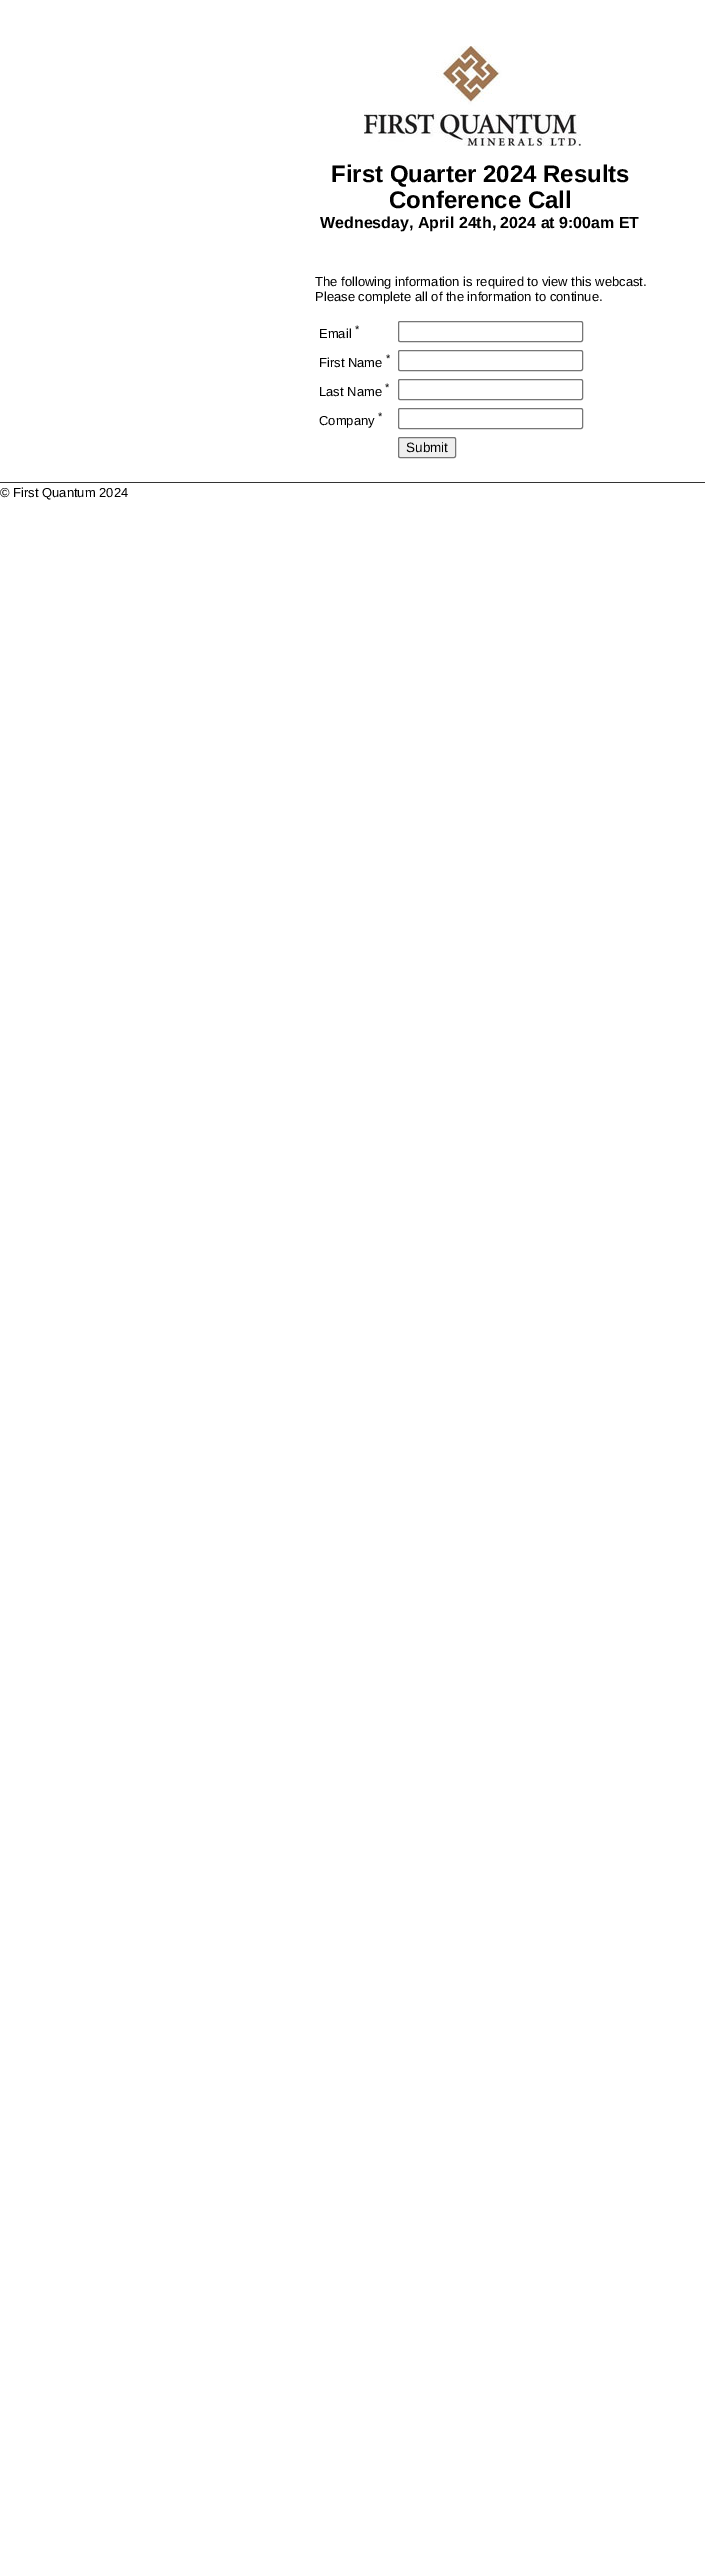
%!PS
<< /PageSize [705 2555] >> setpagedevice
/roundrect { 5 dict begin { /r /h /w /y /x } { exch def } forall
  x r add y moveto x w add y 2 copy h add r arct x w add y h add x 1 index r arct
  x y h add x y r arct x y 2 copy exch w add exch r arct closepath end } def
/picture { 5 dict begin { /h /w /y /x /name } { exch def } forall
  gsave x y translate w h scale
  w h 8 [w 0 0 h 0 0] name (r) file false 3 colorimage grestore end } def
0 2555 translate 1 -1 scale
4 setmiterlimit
1 setgray
0 0 705 2555 rectfill
(img1.rgb) 364 46 217 100 picture
/LiberationSans-Bold [24 0 0 -24 0 0] selectfont
0 setgray
331 182 moveto (First Quarter 2024 Results) show
389 208 moveto (Conference Call) show
/LiberationSans-Bold [16 0 0 -16 0 0] selectfont
320 228 moveto (Wednesday, April 24th, 2024 at 9:00am ET) show
/LiberationSans-Regular [13 0 0 -13 0 0] selectfont
315 286 moveto (The following information is required to view this webcast.) show
315 301 moveto (Please complete all of the information to continue.) show
/LiberationSans-Regular [11 0 0 -11 0 0] selectfont
355 333 moveto (*) show
/LiberationSans-Regular [13 0 0 -13 0 0] selectfont
319 338 moveto (Email) show
0.463 setgray
398.5 321.5 184 20 1.5 roundrect stroke
/LiberationSans-Regular [11 0 0 -11 0 0] selectfont
0 setgray
386 362 moveto (*) show
/LiberationSans-Regular [13 0 0 -13 0 0] selectfont
319 367 moveto (First Name) show
0.463 setgray
398.5 350.5 184 20 1.5 roundrect stroke
/LiberationSans-Regular [11 0 0 -11 0 0] selectfont
0 setgray
385 391 moveto (*) show
/LiberationSans-Regular [13 0 0 -13 0 0] selectfont
319 396 moveto (Last Name) show
0.463 setgray
398.5 379.5 184 20 1.5 roundrect stroke
/LiberationSans-Regular [11 0 0 -11 0 0] selectfont
0 setgray
378 420 moveto (*) show
/LiberationSans-Regular [13 0 0 -13 0 0] selectfont
319 425 moveto (Company) show
0.463 setgray
398.5 408.5 184 20 1.5 roundrect stroke
0.937 setgray
398.5 437.5 57 20 1.5 roundrect gsave fill grestore
0.463 setgray
stroke
/LiberationSans-Regular [13.5 0 0 -13.5 0 0] selectfont
0 setgray
406 452 moveto (Submit) show
0.2 setgray
0 482 705 1 rectfill
/LiberationSans-Regular [13 0 0 -13 0 0] selectfont
0 setgray
0 497 moveto (© First Quantum 2024) show
showpage
